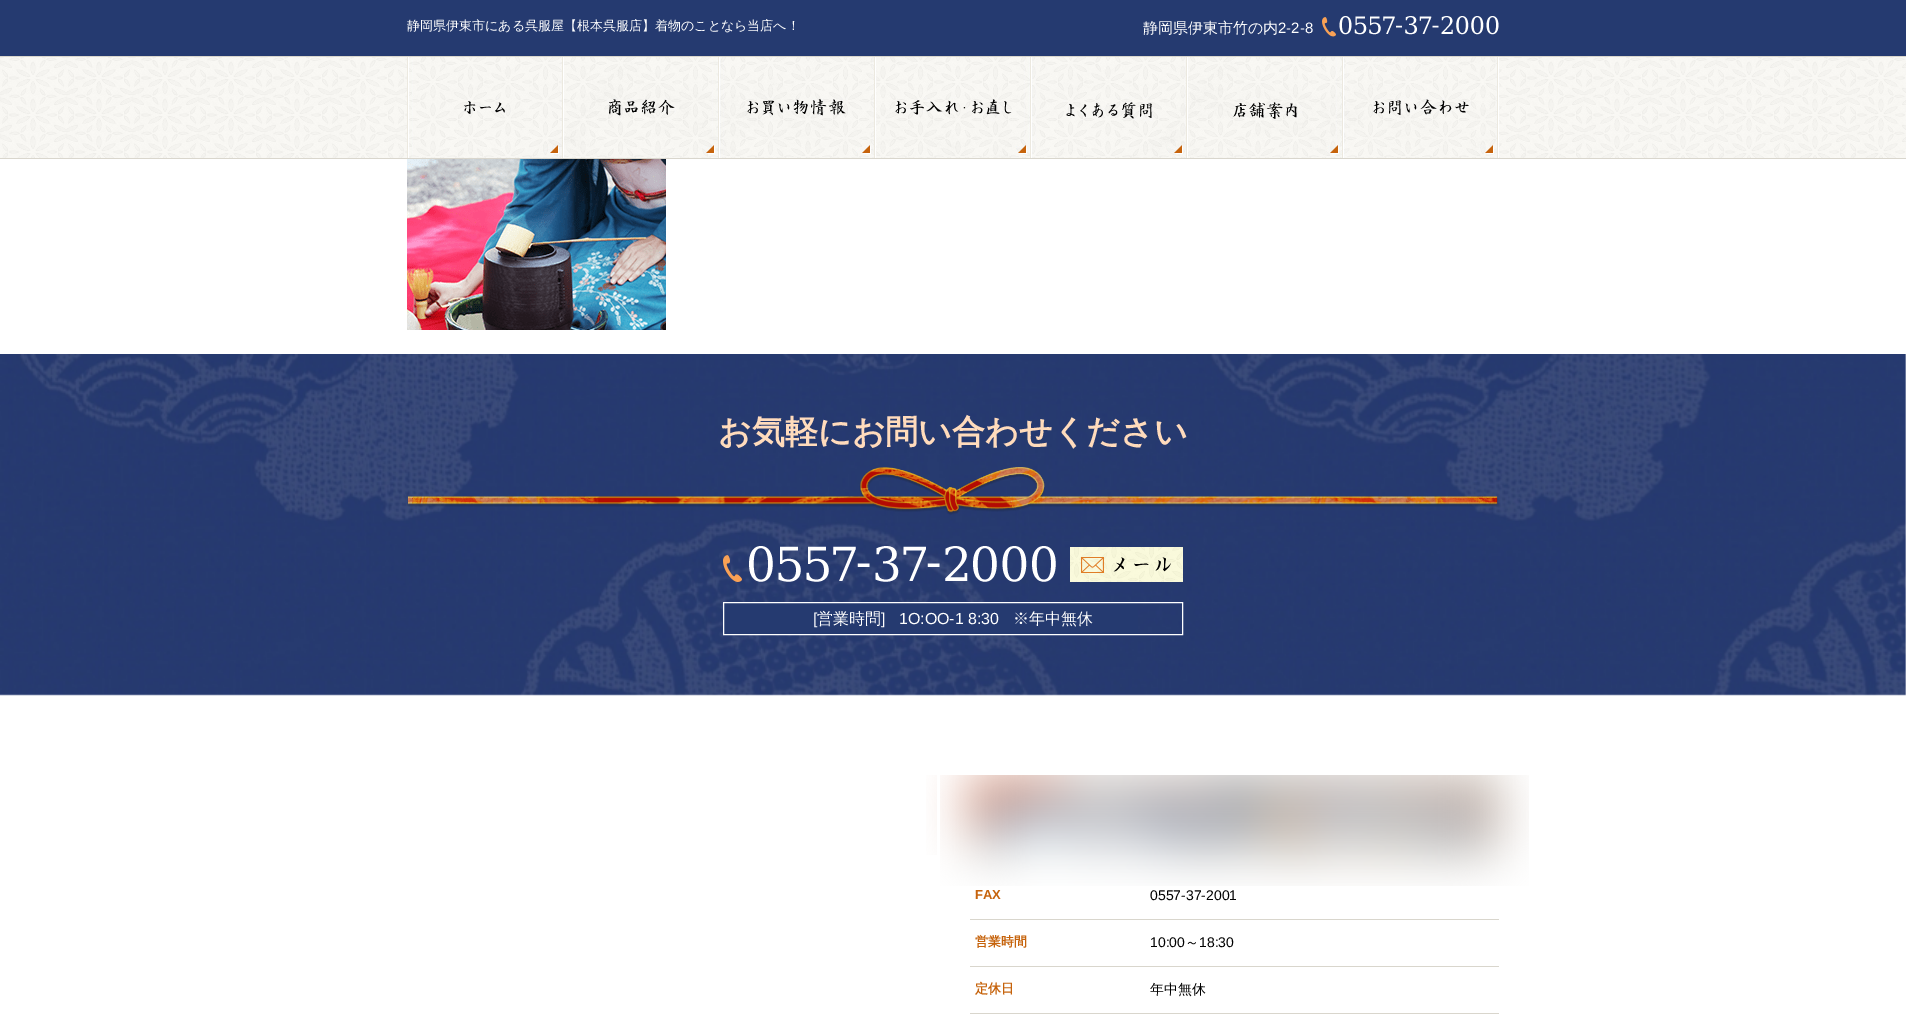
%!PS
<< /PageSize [1906 1034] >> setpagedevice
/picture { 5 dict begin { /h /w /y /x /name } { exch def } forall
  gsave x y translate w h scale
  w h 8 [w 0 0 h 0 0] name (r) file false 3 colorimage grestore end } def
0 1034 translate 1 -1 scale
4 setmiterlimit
1 setgray
0 0 1906 1034 rectfill
0.145 0.227 0.439 setrgbcolor
0 0 1906 56 rectfill
/WenQuanYiZenHei-Medium [13 0 0 -13 0 0] selectfont
1 setgray
407 30 moveto (静岡県伊東市にある呉服屋【根本呉服店】着物のことなら当店へ！) show
/WenQuanYiZenHei-Medium [15 0 0 -15 0 0] selectfont
1143 33 moveto (静岡県伊東市竹の内) show
/LiberationSans-Regular [15 0 0 -15 0 0] selectfont
1278 33 moveto (2-2-8) show
(img1.rgb) 1322 16 177 21 picture
(img2.rgb) 0 57 1906 101 picture
0.851 0.839 0.804 setrgbcolor
0 56 1906 1 rectfill
0 158 1906 1 rectfill
(img3.rgb) 407 57 156 101 picture
(img4.rgb) 563 57 156 101 picture
(img5.rgb) 719 57 156 101 picture
(img6.rgb) 875 57 156 101 picture
(img7.rgb) 1031 57 156 101 picture
(img8.rgb) 1187 57 156 101 picture
(img9.rgb) 1343 57 156 101 picture
(img10.rgb) 407 159 259 171 picture
(img11.rgb) 0 354 1906 342 picture
/WenQuanYiZenHei-Bold [33 0 0 -33 0 0] selectfont
1 0.859 0.737 setrgbcolor
718 443 moveto (お気軽にお問い合わせください) show
(img12.rgb) 407 467 1091 48 picture
(img13.rgb) 723 546 333 36 picture
(img14.rgb) 1070 547 113 35 picture
0.145 0.227 0.439 setrgbcolor
724 603 414 31 rectfill
1 setgray
723.5 602.5 459 32 rectstroke
/LiberationSans-Regular [16 0 0 -16 0 0] selectfont
813 624 moveto ([) show
/WenQuanYiZenHei-Medium [16 0 0 -16 0 0] selectfont
817 624 moveto (営業時問) show
/LiberationSans-Regular [16 0 0 -16 0 0] selectfont
881 624 moveto (]   1O:OO-1 8:30) show
/WenQuanYiZenHei-Medium [16 0 0 -16 0 0] selectfont
1013 624 moveto (※年中無休) show
(img15.rgb) 926 775 11 80 picture
(img16.rgb) 940 775 589 111 picture
/LiberationSans-Bold [13 0 0 -13 0 0] selectfont
0.776 0.388 0.047 setrgbcolor
975 899 moveto (FAX) show
0.851 0.839 0.804 setrgbcolor
970 919 529 1 rectfill
/LiberationSans-Regular [14 0 0 -14 0 0] selectfont
0 setgray
1150 900 moveto (0557-37-2001) show
/WenQuanYiZenHei-Bold [13 0 0 -13 0 0] selectfont
0.776 0.388 0.047 setrgbcolor
975 946 moveto (営業時間) show
0.851 0.839 0.804 setrgbcolor
970 966 529 1 rectfill
/LiberationSans-Regular [14 0 0 -14 0 0] selectfont
0 setgray
1150 947 moveto (10:00) show
/WenQuanYiZenHei-Medium [14 0 0 -14 0 0] selectfont
1185 947 moveto (～) show
/LiberationSans-Regular [14 0 0 -14 0 0] selectfont
1199 947 moveto (18:30) show
/WenQuanYiZenHei-Bold [13 0 0 -13 0 0] selectfont
0.776 0.388 0.047 setrgbcolor
975 993 moveto (定休日) show
0.851 0.839 0.804 setrgbcolor
970 1013 529 1 rectfill
/WenQuanYiZenHei-Medium [14 0 0 -14 0 0] selectfont
0 setgray
1150 994 moveto (年中無休) show
showpage
